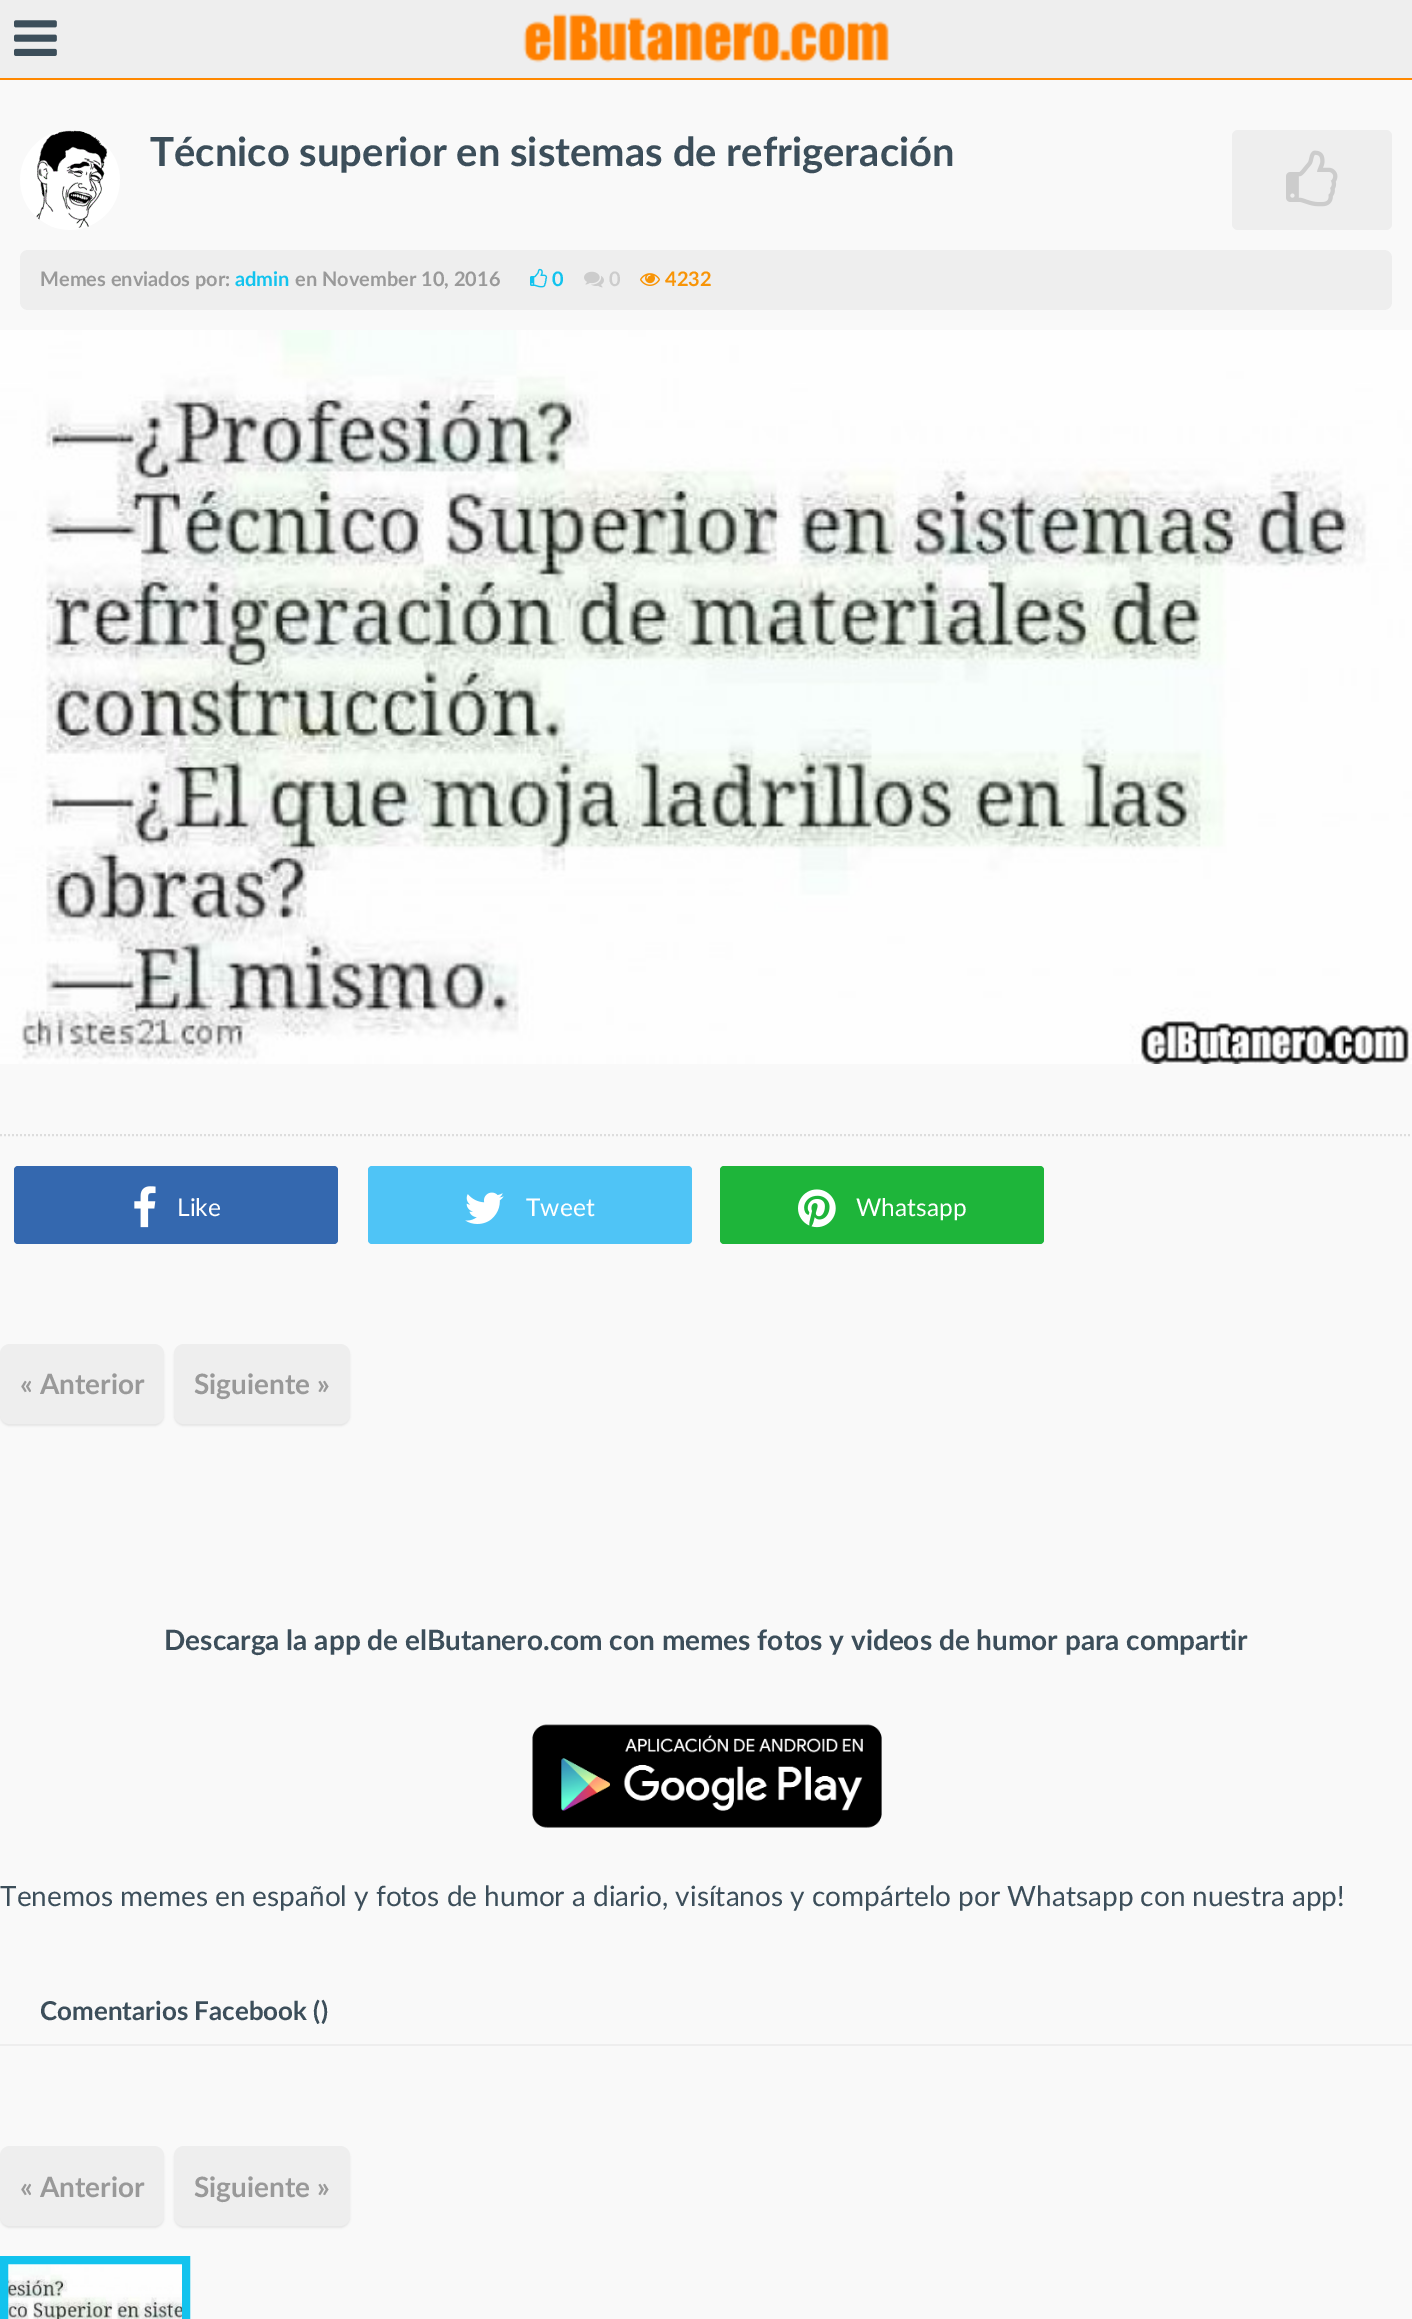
%!PS
<< /PageSize [1412 2319] /PageUsesTransparency true >> setpagedevice
/alpha { dup .setfillconstantalpha .setstrokeconstantalpha } def
/roundrect { 5 dict begin { /r /h /w /y /x } { exch def } forall
  x r add y moveto x w add y 2 copy h add r arct x w add y h add x 1 index r arct
  x y h add x y r arct x y 2 copy exch w add exch r arct closepath end } def
/shadow { 12 dict begin { /a /b /q /h /w /y /x } { exch def } forall gsave /was 0 def
  9 -2 -9 { dup b mul 4 div /e exch def 1 sub .425 mul 2.718 exch exp 1 add a .99 .min exch div /now exch def
    1 1 now sub 1 was sub div sub alpha /was now def
    w h .min e 2 mul add 0 gt { x e sub y e sub w e 2 mul add h e 2 mul add
      q e add b .6 mul add w h .min 2 div e add .min 0 .max roundrect fill } if } for grestore end } def
/picture { 5 dict begin { /h /w /y /x /name } { exch def } forall
  gsave x y translate w h scale
  w h 8 [w 0 0 h 0 0] name (r) file false 3 colorimage grestore end } def
0 .pushpdf14devicefilter
0 2319 translate 1 -1 scale
4 setmiterlimit
0.976 setgray
0 0 1412 2319 rectfill
0.933 setgray
0 0 1412 78 rectfill
1 0.533 0 setrgbcolor
0 78 1412 2 rectfill
(img1.rgb) 14 20 43 36 picture
(img2.rgb) 523 13 366 50 picture
(img3.rgb) 20 130 100 100 picture
/Lato-Bold [40 0 0 -40 0 0] selectfont
0.235 0.306 0.353 setrgbcolor
150 166 moveto (Técnico superior en sistemas de refrigeración) show
0.933 setgray
1232 130 160 100 6 roundrect fill
(img4.rgb) 1286 150 52 57 picture
20 250 1372 60 8 roundrect fill
/Lato-Bold [20 0 0 -20 0 0] selectfont
0.6 setgray
40 286 moveto (Memes enviados por:) show
0.071 0.765 0.933 setrgbcolor
235 286 moveto (admin) show
0.6 setgray
295 286 moveto (en November 10, 2016) show
(img5.rgb) 530 268 18 20 picture
0.071 0.765 0.933 setrgbcolor
552 286 moveto (0) show
(img6.rgb) 584 271 20 17 picture
0.8 setgray
609 286 moveto (0) show
(img7.rgb) 640 273 20 13 picture
0.973 0.58 0.024 setrgbcolor
665 286 moveto (4232) show
(img8.rgb) 0 330 1412 734 picture
0.867 setgray
2 setlinewidth
[2 2] 0 setdash
newpath 0 1135 moveto 1412 1135 lineto stroke
0.204 0.408 0.686 setrgbcolor
14 1166 324 78 4 roundrect fill
(img9.rgb) 134 1186 22 42 picture
/Lato-Regular [24.5 0 0 -24.5 0 0] selectfont
1 setgray
177 1216 moveto (Like) show
0.31 0.769 0.965 setrgbcolor
368 1166 324 78 4 roundrect fill
(img10.rgb) 465 1192 39 32 picture
1 setgray
526 1216 moveto (Tweet) show
0.118 0.71 0.227 setrgbcolor
720 1166 324 78 4 roundrect fill
(img11.rgb) 798 1189 38 39 picture
1 setgray
856 1216 moveto (Whatsapp) show
0 setgray
0 1346 164 80 10 1 0.07 shadow
0.933 setgray
0 1344 164 80 10 roundrect fill
/Lato-Bold [28 0 0 -28 0 0] selectfont
0.6 setgray
20 1394 moveto (« Anterior) show
0 setgray
174 1346 176 80 10 1 0.07 shadow
0.933 setgray
174 1344 176 80 10 roundrect fill
0.6 setgray
194 1394 moveto (Siguiente ») show
0.235 0.306 0.353 setrgbcolor
164 1650 moveto (Descarga la app de elButanero.com con memes fotos y videos de humor para compartir) show
(img12.rgb) 532 1724 350 104 picture
/Lato-Regular [28 0 0 -28 0 0] selectfont
0 1906 moveto (Tenemos memes en español y fotos de humor a diario, visítanos y compártelo por Whatsapp con nuestra app!) show
/Lato-Bold [26 0 0 -26 0 0] selectfont
40 2020 moveto (Comentarios Facebook \(\)) show
0.933 setgray
0 2044 1412 2 rectfill
0 setgray
0 2148 164 80 10 1 0.07 shadow
0.933 setgray
0 2146 164 80 10 roundrect fill
/Lato-Bold [28 0 0 -28 0 0] selectfont
0.6 setgray
20 2197 moveto (« Anterior) show
0 setgray
174 2148 176 80 10 1 0.07 shadow
0.933 setgray
174 2146 176 80 10 roundrect fill
0.6 setgray
194 2197 moveto (Siguiente ») show
(img13.rgb) 8 2264 174 55 picture
0.071 0.765 0.933 setrgbcolor
8 setlinewidth
[] 0 setdash
4 2260 182 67 rectstroke
.poppdf14devicefilter showpage
